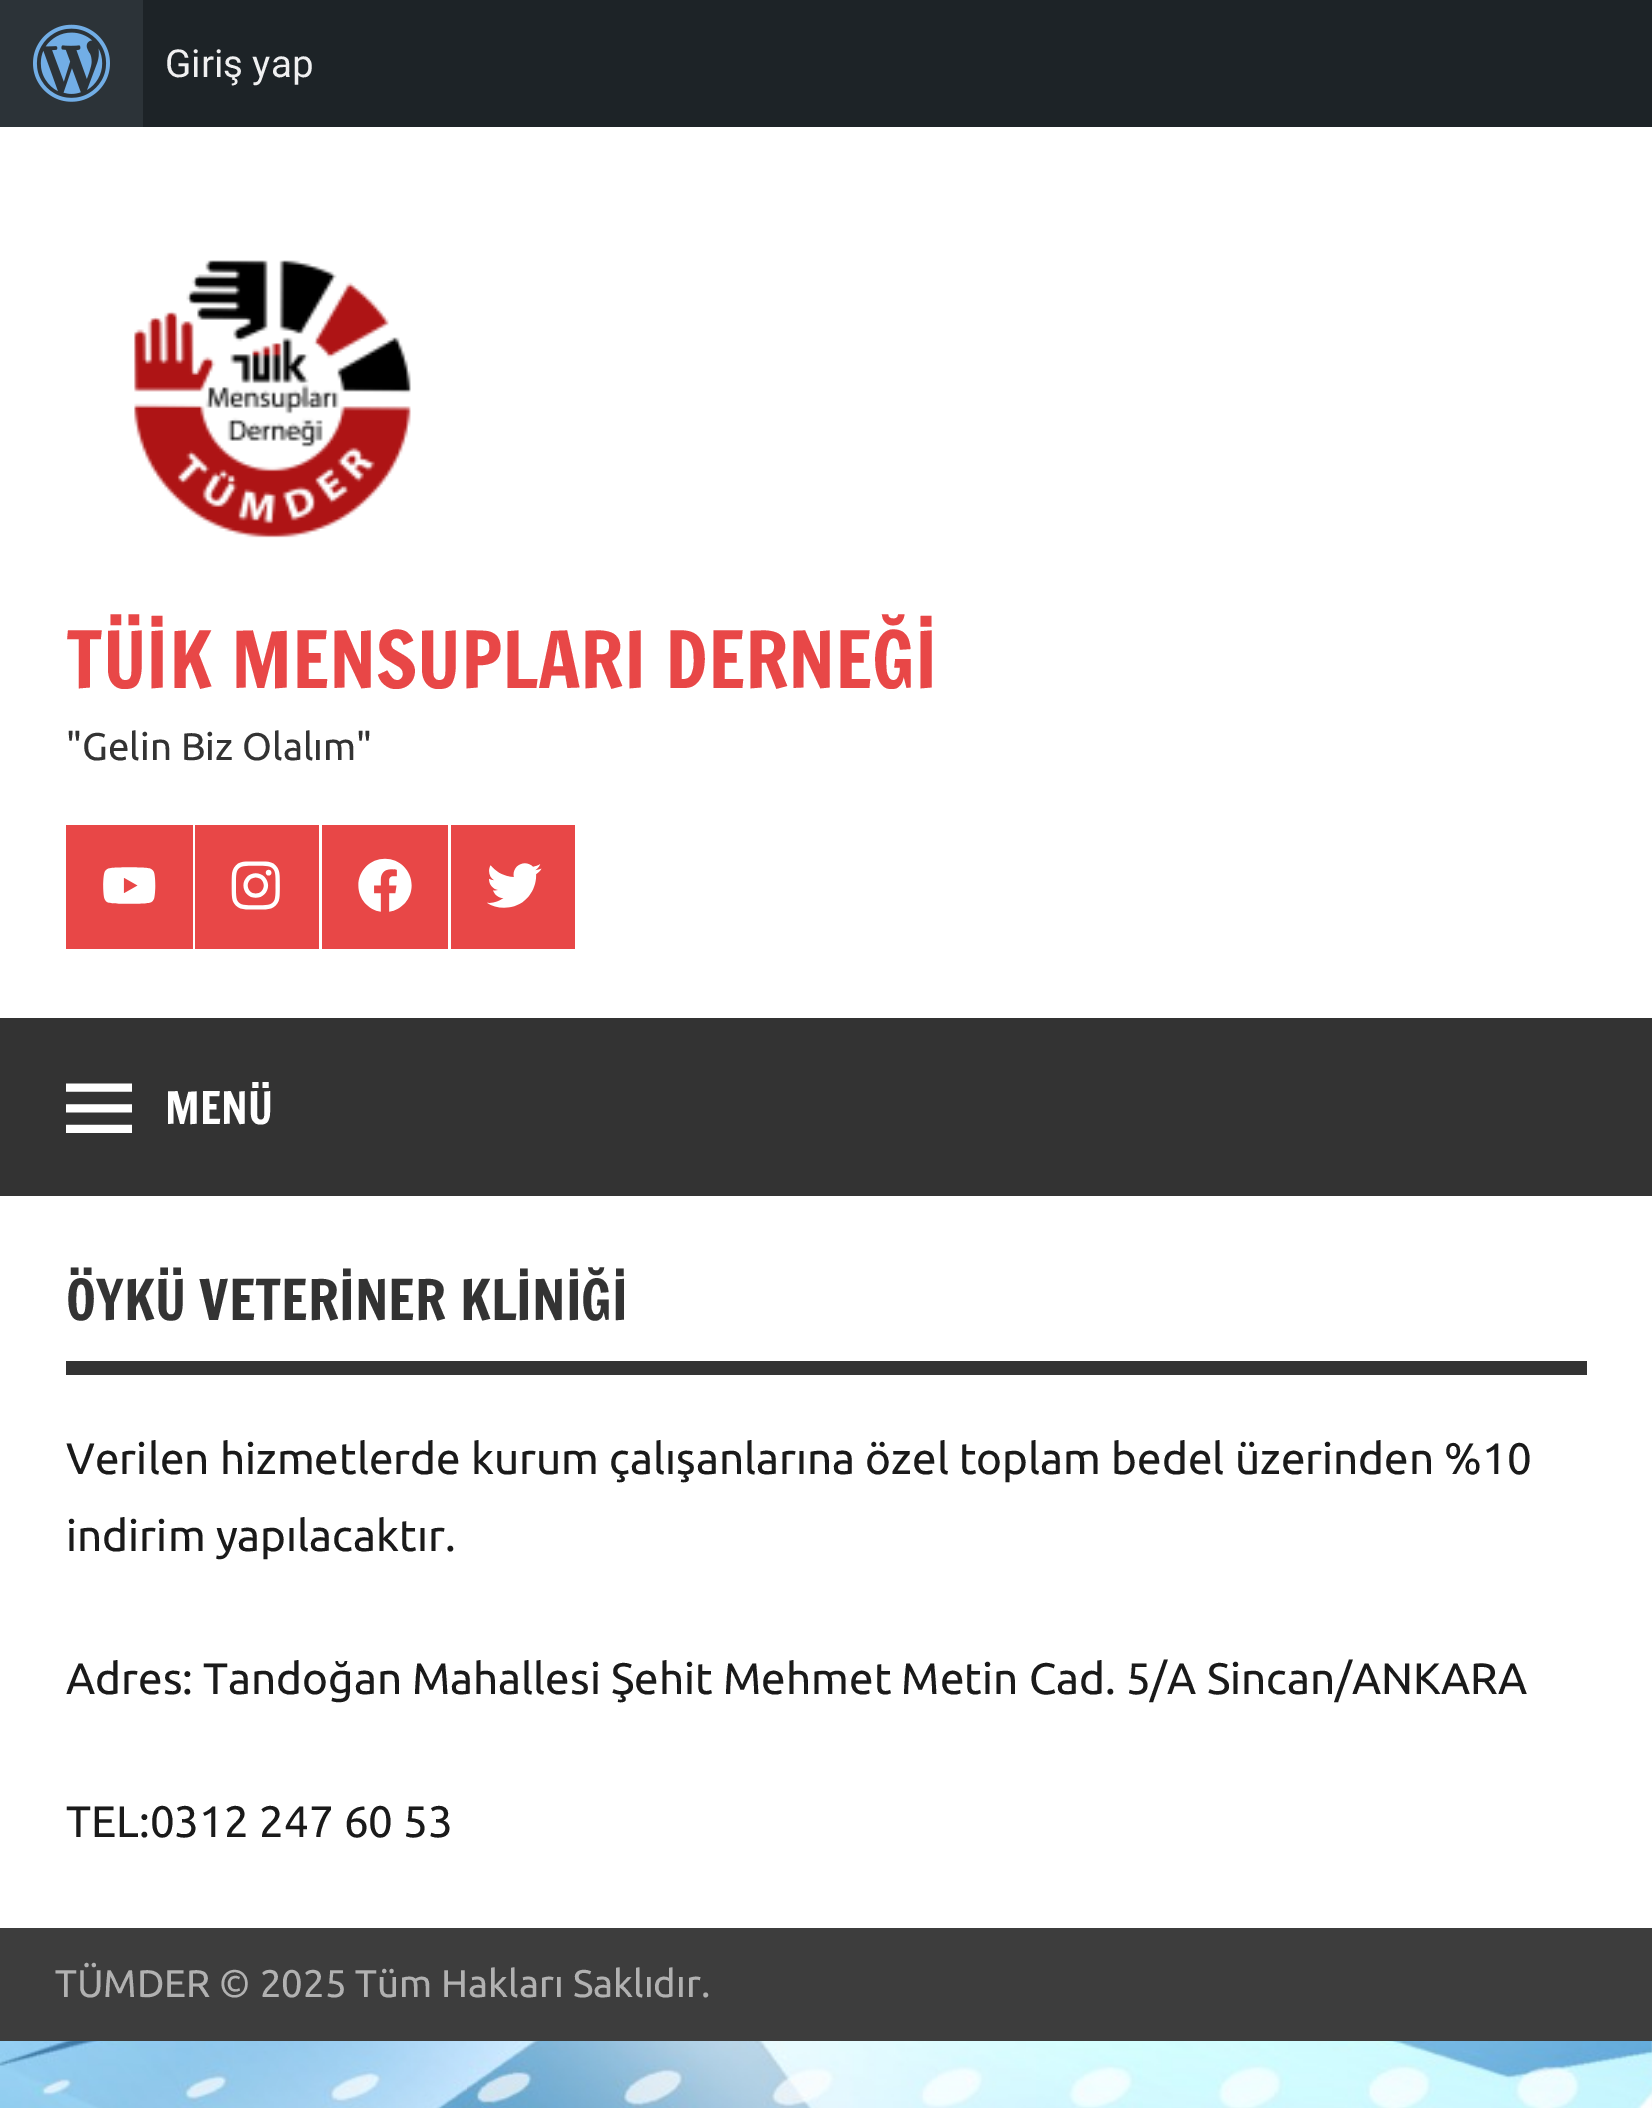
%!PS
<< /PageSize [1652 2108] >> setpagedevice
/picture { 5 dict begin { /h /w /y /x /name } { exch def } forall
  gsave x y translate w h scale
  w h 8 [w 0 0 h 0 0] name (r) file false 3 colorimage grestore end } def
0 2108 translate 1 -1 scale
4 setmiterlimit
1 setgray
0 0 1652 2108 rectfill
(img1.rgb) 0 2041 1652 67 picture
0.114 0.137 0.153 setrgbcolor
143 0 1509 127 rectfill
0.173 0.2 0.22 setrgbcolor
0 0 143 127 rectfill
(img2.rgb) 33 24 77 78 picture
/Roboto-Regular [38.5 0 0 -38.5 0 0] selectfont
0.941 0.941 0.945 setrgbcolor
165 77 moveto (Giriş yap) show
(img3.rgb) 134 260 277 278 picture
/FrancoisOne-Regular [77 0 0 -77 0 0] selectfont
0.91 0.278 0.278 setrgbcolor
66 688 moveto (TÜİK MENSUPLARI DERNEĞİ) show
/Ubuntu-Regular [38.5 0 0 -38.5 0 0] selectfont
0.2 setgray
66 760 moveto ("Gelin Biz Olalım") show
0.91 0.278 0.278 setrgbcolor
66 825 127 124 rectfill
(img4.rgb) 103 867 53 37 picture
195 825 124 124 rectfill
(img5.rgb) 231 861 49 49 picture
322 825 126 124 rectfill
(img6.rgb) 358 858 54 54 picture
451 825 124 124 rectfill
(img7.rgb) 487 863 55 45 picture
0.2 setgray
0 1018 1652 178 rectfill
(img8.rgb) 66 1083 66 50 picture
/FrancoisOne-Regular [44 0 0 -44 0 0] selectfont
1 setgray
165 1124 moveto (MENÜ) show
0.2 setgray
66 1361 1521 14 rectfill
/FrancoisOne-Regular [55 0 0 -55 0 0] selectfont
66 1320 moveto (ÖYKÜ VETERİNER KLİNİĞİ) show
/Ubuntu-Regular [44 0 0 -44 0 0] selectfont
0.102 setgray
66 1474 moveto (Verilen hizmetlerde kurum çalışanlarına özel toplam bedel üzerinden %10) show
66 1551 moveto (indirim yapılacaktır.) show
66 1694 moveto (Adres: Tandoğan Mahallesi Şehit Mehmet Metin Cad. 5/A Sincan/ANKARA) show
66 1837 moveto (TEL:0312 247 60 53) show
0.239 setgray
0 1928 1652 113 rectfill
/Ubuntu-Regular [38.5 0 0 -38.5 0 0] selectfont
0.694 setgray
55 1997 moveto (TÜMDER © 2025 Tüm Hakları Saklıdır.) show
showpage
